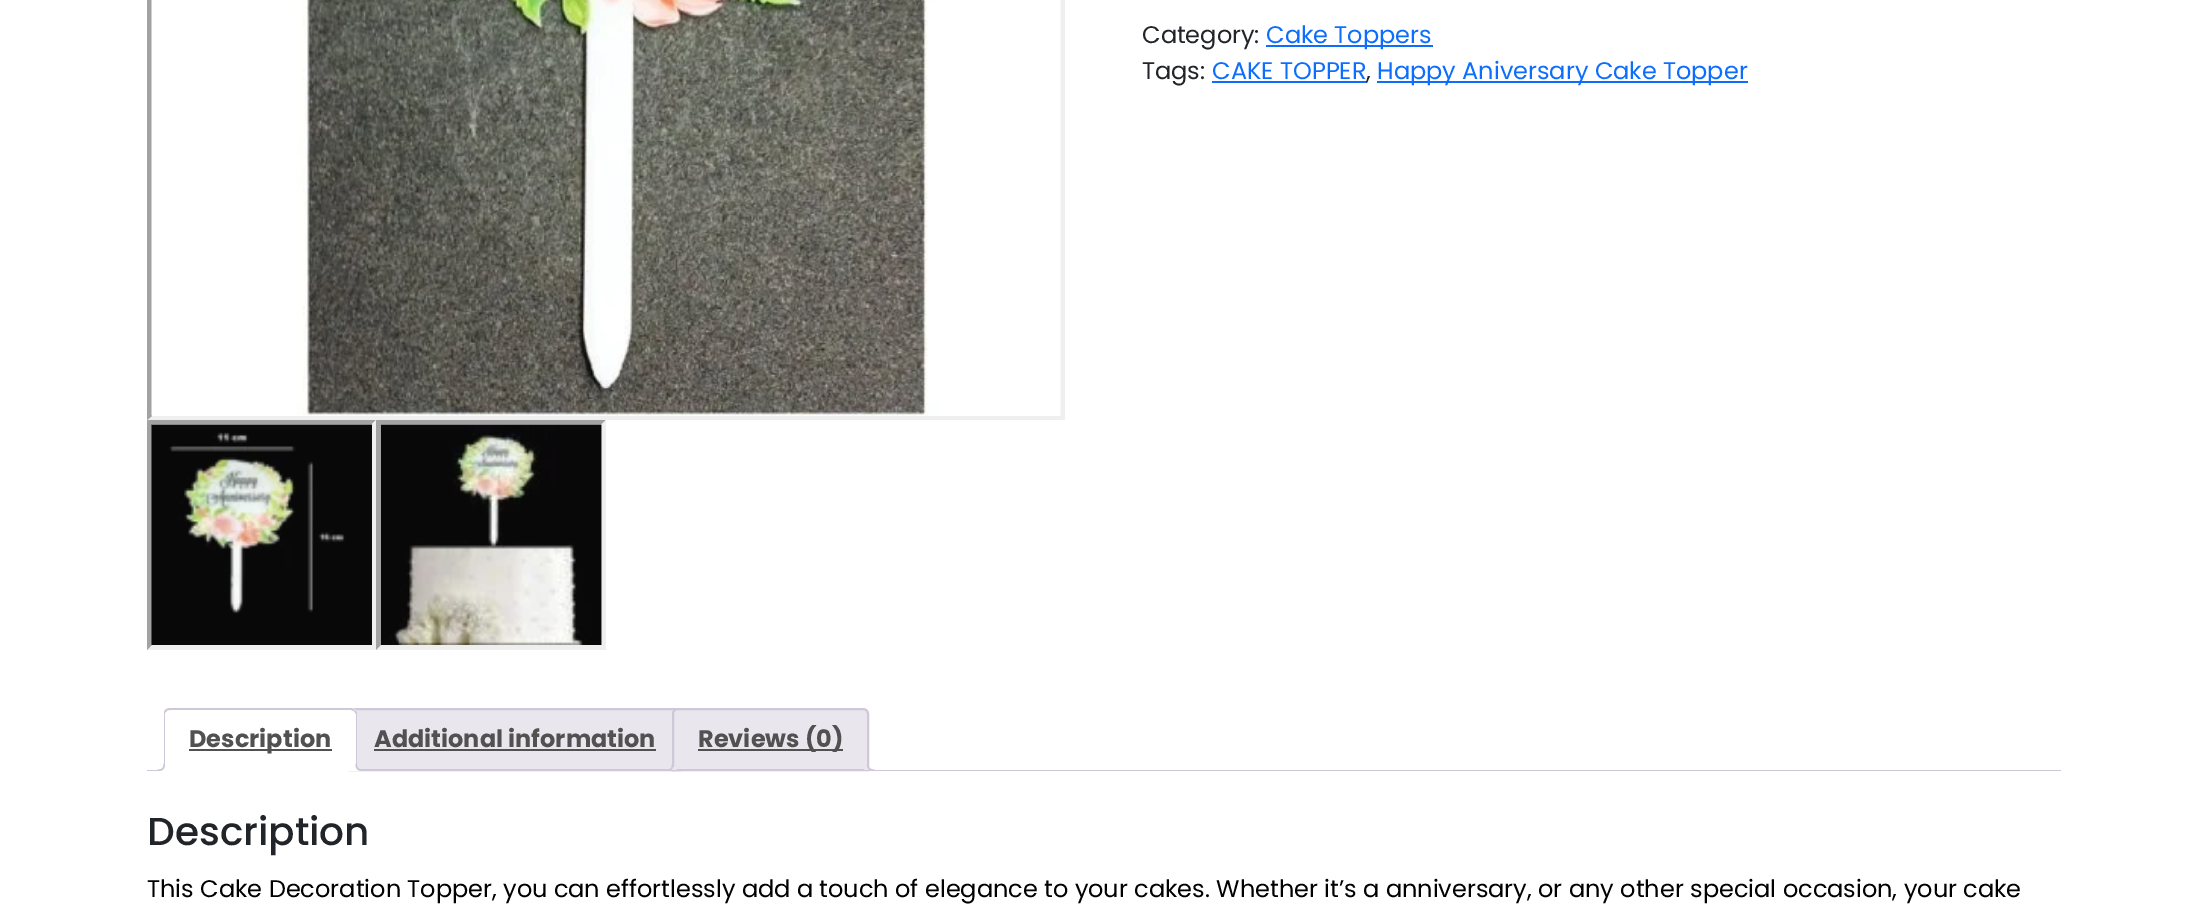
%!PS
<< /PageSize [2208 905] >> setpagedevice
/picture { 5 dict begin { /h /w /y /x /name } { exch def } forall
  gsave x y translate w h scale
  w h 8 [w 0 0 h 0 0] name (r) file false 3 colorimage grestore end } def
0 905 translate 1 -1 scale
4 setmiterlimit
1 setgray
0 0 2208 905 rectfill
0.937 setgray
newpath 1065 -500 moveto 1065 420 lineto 1060 416 lineto 1060 -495 lineto closepath fill
newpath 1065 420 moveto 147 420 lineto 152 416 lineto 1060 416 lineto closepath fill
0.635 setgray
newpath 147 420 moveto 147 -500 lineto 152 -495 lineto 152 416 lineto closepath fill
(img1.rgb) 151 0 910 416 picture
newpath 147 420 moveto 376 420 lineto 372 424 lineto 152 424 lineto closepath fill
0.937 setgray
newpath 376 420 moveto 376 650 lineto 372 645 lineto 372 424 lineto closepath fill
newpath 376 650 moveto 147 650 lineto 152 645 lineto 372 645 lineto closepath fill
0.635 setgray
newpath 147 650 moveto 147 420 lineto 152 424 lineto 152 645 lineto closepath fill
(img2.rgb) 151 424 221 221 picture
newpath 376 420 moveto 606 420 lineto 602 424 lineto 381 424 lineto closepath fill
0.937 setgray
newpath 606 420 moveto 606 650 lineto 602 645 lineto 602 424 lineto closepath fill
newpath 606 650 moveto 376 650 lineto 381 645 lineto 602 645 lineto closepath fill
0.635 setgray
newpath 376 650 moveto 376 420 lineto 381 424 lineto 381 645 lineto closepath fill
(img3.rgb) 381 424 221 221 picture
/Poppins-Regular [24 0 0 -24 0 0] selectfont
0.129 0.145 0.161 setrgbcolor
1142 43 moveto (Category:) show
0.051 0.431 0.992 setrgbcolor
1266 45 167 2 rectfill
1266 43 moveto (Cake Toppers) show
0.129 0.145 0.161 setrgbcolor
1142 79 moveto (Tags:) show
0.051 0.431 0.992 setrgbcolor
1212 79 moveto (CAKE TOPPER) show
1212 81 155 2 rectfill
0.129 0.145 0.161 setrgbcolor
1366 79 moveto (,) show
0.051 0.431 0.992 setrgbcolor
1377 81 371 2 rectfill
1377 79 moveto (Happy Aniversary Cake Topper) show
0.914 0.902 0.929 setrgbcolor
newpath 354 709 moveto 675 709 lineto 678 709 680 711 680 714 curveto 680 770 lineto 349 770 lineto 349 714 lineto 349 711 351 709 354 709 curveto closepath gsave fill grestore
0.812 0.784 0.847 setrgbcolor
2 setlinewidth
stroke
0.914 0.902 0.929 setrgbcolor
newpath 678 709 moveto 863 709 lineto 866 709 868 711 868 714 curveto 868 770 lineto 673 770 lineto 673 714 lineto 673 711 675 709 678 709 curveto closepath gsave fill grestore
0.812 0.784 0.847 setrgbcolor
stroke
gsave
147 708 1914 63 rectclip
0.914 0.902 0.929 setrgbcolor
newpath 669 771 moveto 669 774 lineto 674 774 677 772.5 677 767 curveto 673 767 lineto 672.5 769 671 770.5 669 771 curveto closepath fill
grestore
newpath 666 763.5 moveto 673.5 763.5 lineto 673.5 769 671.5 771 666 771 curveto closepath 666 763.5 moveto 672 763.5 lineto 672 768 670.5 769.5 666 769.5 curveto closepath eofill
gsave
147 708 1914 63 rectclip
0.914 0.902 0.929 setrgbcolor
newpath 864 767 moveto 864 772.5 867 774 872 774 curveto 872 771 lineto 870 770.5 868 769 867.5 767 curveto closepath fill
grestore
newpath 867 763.5 moveto 874.5 763.5 lineto 874.5 771 lineto 870.5 771 867 769.5 867 765 curveto closepath 868.5 763.5 moveto 874.5 763.5 lineto 874.5 769.5 lineto 871.5 769.5 868.5 768.5 868.5 765 curveto closepath eofill
147 770 1914 1 rectfill
1 setgray
newpath 170 708 moveto 351 708 lineto 354.5 708 357 710.5 357 714 curveto 357 771 lineto 164 771 lineto 164 714 lineto 164 710.5 166.5 708 170 708 curveto closepath fill
0.812 0.784 0.847 setrgbcolor
newpath 170 708 moveto 168 708 166 709 165 710 curveto 167 711 lineto 167 710 169 710 170 710 curveto 351 710 lineto 354 711 lineto 355 710 lineto 354 709 352 708 351 708 curveto closepath fill
newpath 357 771 moveto 357 714 lineto 357 712 356 711 355 710 curveto 354 711 lineto 356 714 lineto 356 770 lineto closepath fill
1 setgray
newpath 357 771 moveto 356 770 lineto 165 770 lineto 164 771 lineto closepath fill
0.812 0.784 0.847 setrgbcolor
newpath 165 710 moveto 164 711 164 713 164 714 curveto 164 770 lineto 165 770 lineto 165 713 lineto 167 711 lineto closepath fill
0.318 setgray
189 749 143 2 rectfill
/Poppins-Bold [24 0 0 -24 0 0] selectfont
189 747 moveto (Description) show
gsave
147 708 1914 63 rectclip
1 setgray
newpath 161 770.5 moveto 161 774 lineto 165.5 774 168 771.5 168 767 curveto 164.5 767 lineto 164 768.5 162.5 770 161 770.5 curveto closepath fill
grestore
0.812 0.784 0.847 setrgbcolor
newpath 157.5 763.5 moveto 165 763.5 lineto 165 769 163 771 157.5 771 curveto closepath 157.5 763.5 moveto 163.5 763.5 lineto 163.5 768 162 769.5 157.5 769.5 curveto closepath eofill
gsave
147 708 1914 63 rectclip
1 setgray
newpath 353 767 moveto 353 771.5 355.5 774 360 774 curveto 360 771 lineto 358 770.5 356.5 769 356 767 curveto closepath fill
grestore
newpath 355.5 763.5 moveto 363 763.5 lineto 363 771 lineto 359 771 355.5 769.5 355.5 765 curveto closepath 357 763.5 moveto 363 763.5 lineto 363 769.5 lineto 360 769.5 357 768.5 357 765 curveto closepath eofill
0.318 setgray
374 747 moveto (Additional information) show
374 749 282 2 rectfill
698 749 145 2 rectfill
698 747 moveto (Reviews \(0\)) show
/Poppins-Medium [39 0 0 -39 0 0] selectfont
0.129 0.145 0.161 setrgbcolor
147 845 moveto (Description) show
/Poppins-Regular [24 0 0 -24 0 0] selectfont
0 setgray
147 897 moveto (This Cake Decoration Topper, you can effortlessly add a touch of elegance to your cakes. Whether it’s a anniversary, or any other special occasion, your cake) show
showpage
